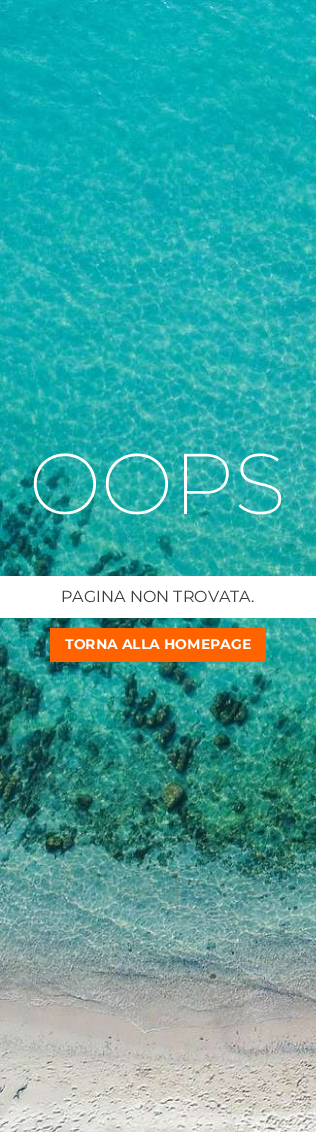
%!PS
<< /PageSize [316 1132] >> setpagedevice
/picture { 5 dict begin { /h /w /y /x /name } { exch def } forall
  gsave x y translate w h scale
  w h 8 [w 0 0 h 0 0] name (r) file false 3 colorimage grestore end } def
0 1132 translate 1 -1 scale
4 setmiterlimit
1 setgray
0 0 316 1132 rectfill
(img1.rgb) 0 0 316 1132 picture
/Montserrat-ExtraLight [86 0 0 -86 0 0] selectfont
29 514 moveto (OOPS) show
0 576 316 42 rectfill
/Montserrat-Regular [16 0 0 -16 0 0] selectfont
0.239 setgray
61 602 moveto (PAGINA NON TROVATA.) show
1 0.388 0 setrgbcolor
50 628 216 34 rectfill
/Montserrat-Bold [14 0 0 -14 0 0] selectfont
1 setgray
65 649 moveto (TORNA ALLA HOMEPAGE) show
showpage
